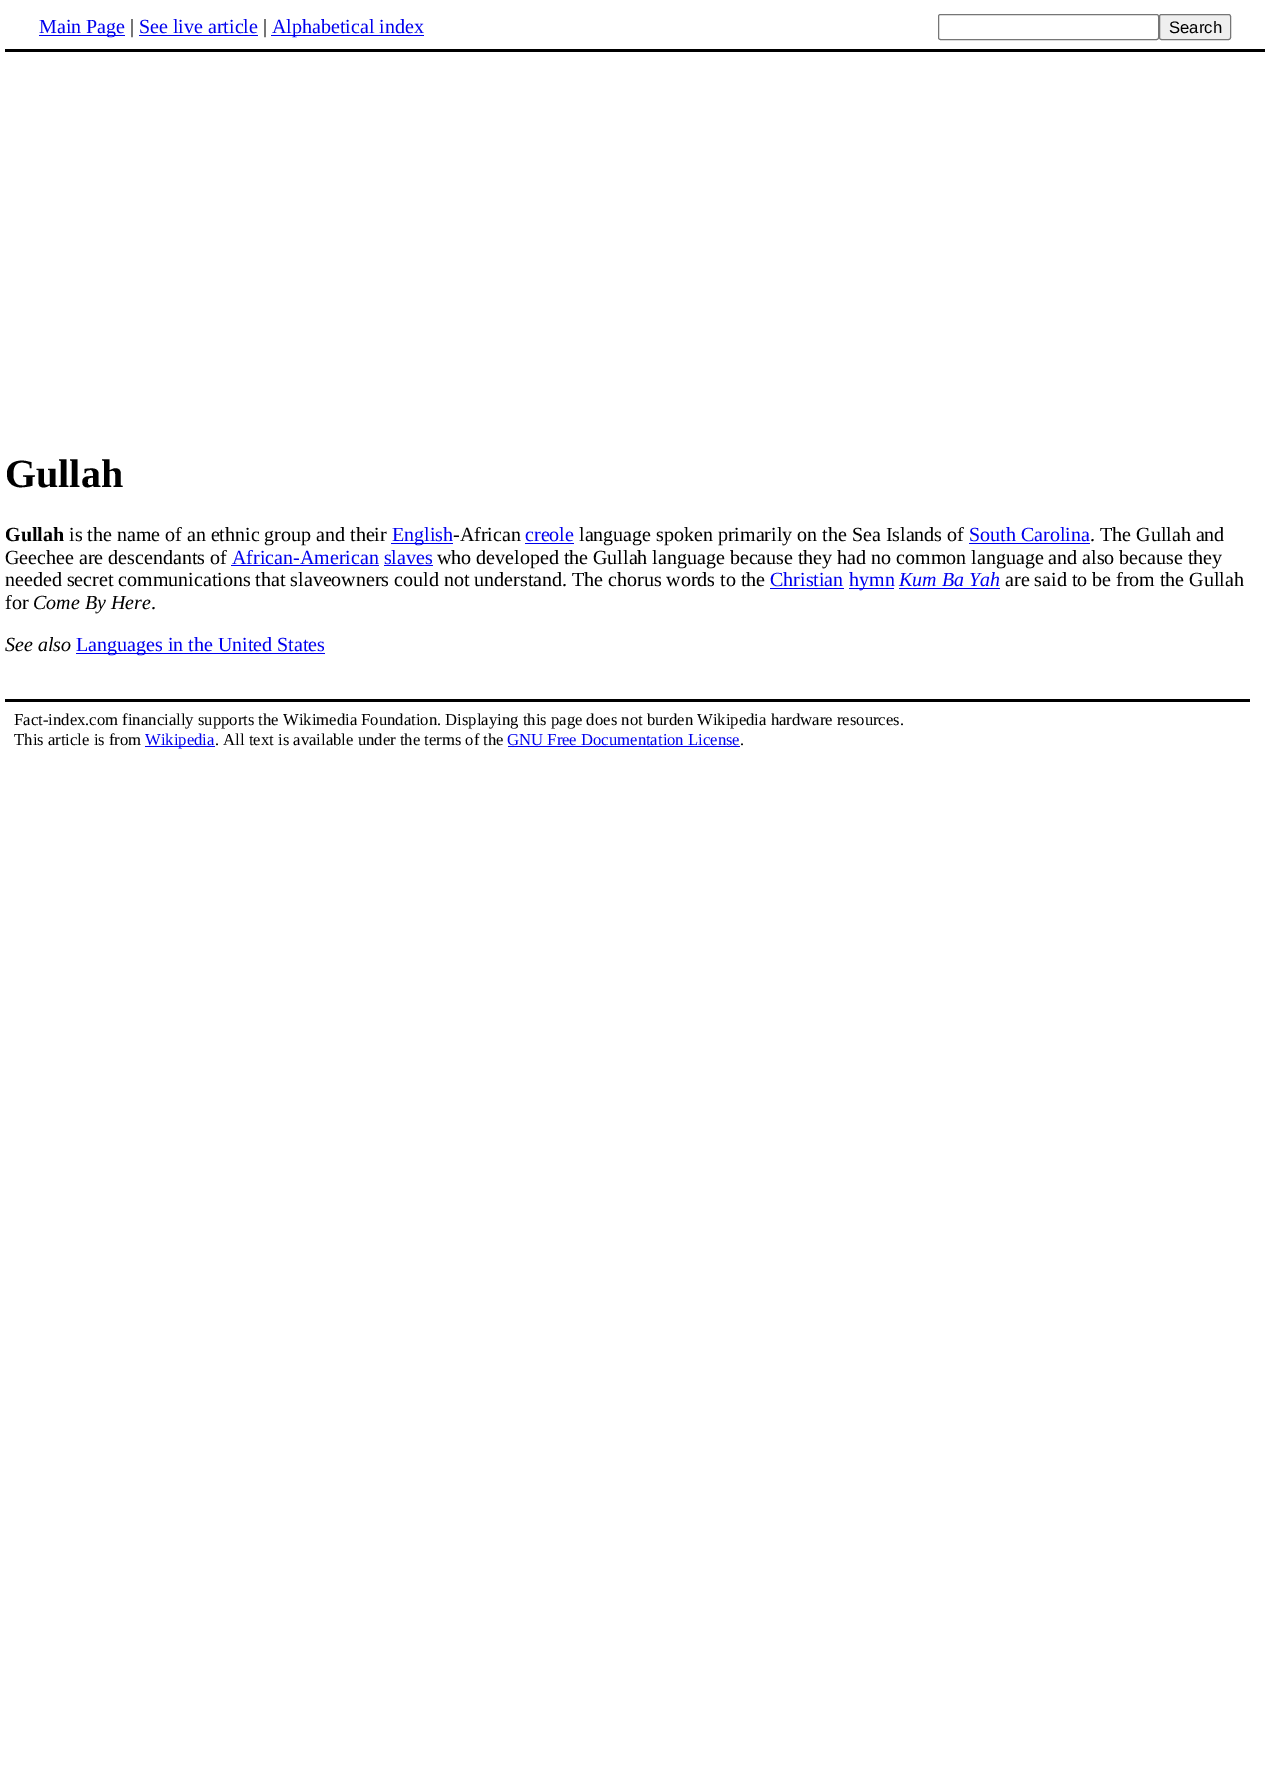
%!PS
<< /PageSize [1269 1771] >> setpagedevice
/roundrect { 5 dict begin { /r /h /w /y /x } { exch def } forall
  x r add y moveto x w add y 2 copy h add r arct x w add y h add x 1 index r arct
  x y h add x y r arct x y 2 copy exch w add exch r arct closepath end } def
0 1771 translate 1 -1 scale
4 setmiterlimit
1 setgray
0 0 1269 1771 rectfill
0 setgray
5 49 1260 3 rectfill
0 0 0.933 setrgbcolor
39 35 86 1 rectfill
/LiberationSerif-Regular [20 0 0 -20 0 0] selectfont
39 33 moveto (Main Page) show
0 setgray
130 33 moveto (|) show
0 0 0.933 setrgbcolor
139 33 moveto (See live article) show
139 35 119 1 rectfill
0 setgray
263 33 moveto (|) show
0 0 0.933 setrgbcolor
271 35 153 1 rectfill
272 33 moveto (Alphabetical index) show
0.463 setgray
938.5 14.5 220 25 2 roundrect stroke
0.937 setgray
1159.5 14.5 71 25 2 roundrect gsave fill grestore
0.463 setgray
stroke
/LiberationSans-Regular [16.67 0 0 -16.67 0 0] selectfont
0 setgray
1169 33 moveto (Search) show
/LiberationSerif-Bold [40 0 0 -40 0 0] selectfont
5 487 moveto (Gullah) show
/LiberationSerif-Bold [20 0 0 -20 0 0] selectfont
5 541 moveto (Gullah) show
/LiberationSerif-Regular [20 0 0 -20 0 0] selectfont
69 541 moveto (is the name of an ethnic group and their) show
0 0 0.933 setrgbcolor
391 543 62 1 rectfill
392 541 moveto (English) show
0 setgray
453 541 moveto (-African) show
0 0 0.933 setrgbcolor
525 541 moveto (creole) show
525 543 49 1 rectfill
0 setgray
579 541 moveto (language spoken primarily on the Sea Islands of) show
0 0 0.933 setrgbcolor
969 541 moveto (South Carolina) show
969 543 121 1 rectfill
0 setgray
1090 541 moveto (. The Gullah and) show
5 564 moveto (Geechee are descendants of) show
0 0 0.933 setrgbcolor
232 564 moveto (African-American slaves) show
231 565 148 1 rectfill
0 setgray
437 564 moveto (who developed the Gullah language because they had no common language and also because they) show
0 0 0.933 setrgbcolor
384 565 49 1 rectfill
0 setgray
5 586 moveto (needed secret communications that slaveowners could not understand. The chorus words to the) show
0 0 0.933 setrgbcolor
770 586 moveto (Christian) show
770 588 74 1 rectfill
849 588 45 1 rectfill
849 586 moveto (hymn) show
/LiberationSerif-Italic [20 0 0 -20 0 0] selectfont
899 586 moveto (Kum Ba Yah) show
899 588 101 1 rectfill
/LiberationSerif-Regular [20 0 0 -20 0 0] selectfont
0 setgray
1005 586 moveto (are said to be from the Gullah) show
5 609 moveto (for) show
/LiberationSerif-Italic [20 0 0 -20 0 0] selectfont
33 609 moveto (Come By Here) show
/LiberationSerif-Regular [20 0 0 -20 0 0] selectfont
151 609 moveto (.) show
/LiberationSerif-Italic [20 0 0 -20 0 0] selectfont
5 651 moveto (See also) show
0 0 0.933 setrgbcolor
76 653 249 1 rectfill
/LiberationSerif-Regular [20 0 0 -20 0 0] selectfont
76 651 moveto (Languages in the United States) show
0 setgray
5 699 1245 3 rectfill
/LiberationSerif-Regular [16.67 0 0 -16.67 0 0] selectfont
14 725 moveto (Fact-index.com financially supports the Wikimedia Foundation. Displaying this page does not burden Wikipedia hardware resources.) show
14 745 moveto (This article is from) show
0 0 0.933 setrgbcolor
145 746 70 1 rectfill
145 745 moveto (Wikipedia) show
0 setgray
215 745 moveto (. All text is available under the terms of the) show
0 0 0.933 setrgbcolor
507 745 moveto (GNU Free Documentation License) show
0 setgray
740 745 moveto (.) show
0 0 0.933 setrgbcolor
508 746 232 1 rectfill
showpage
